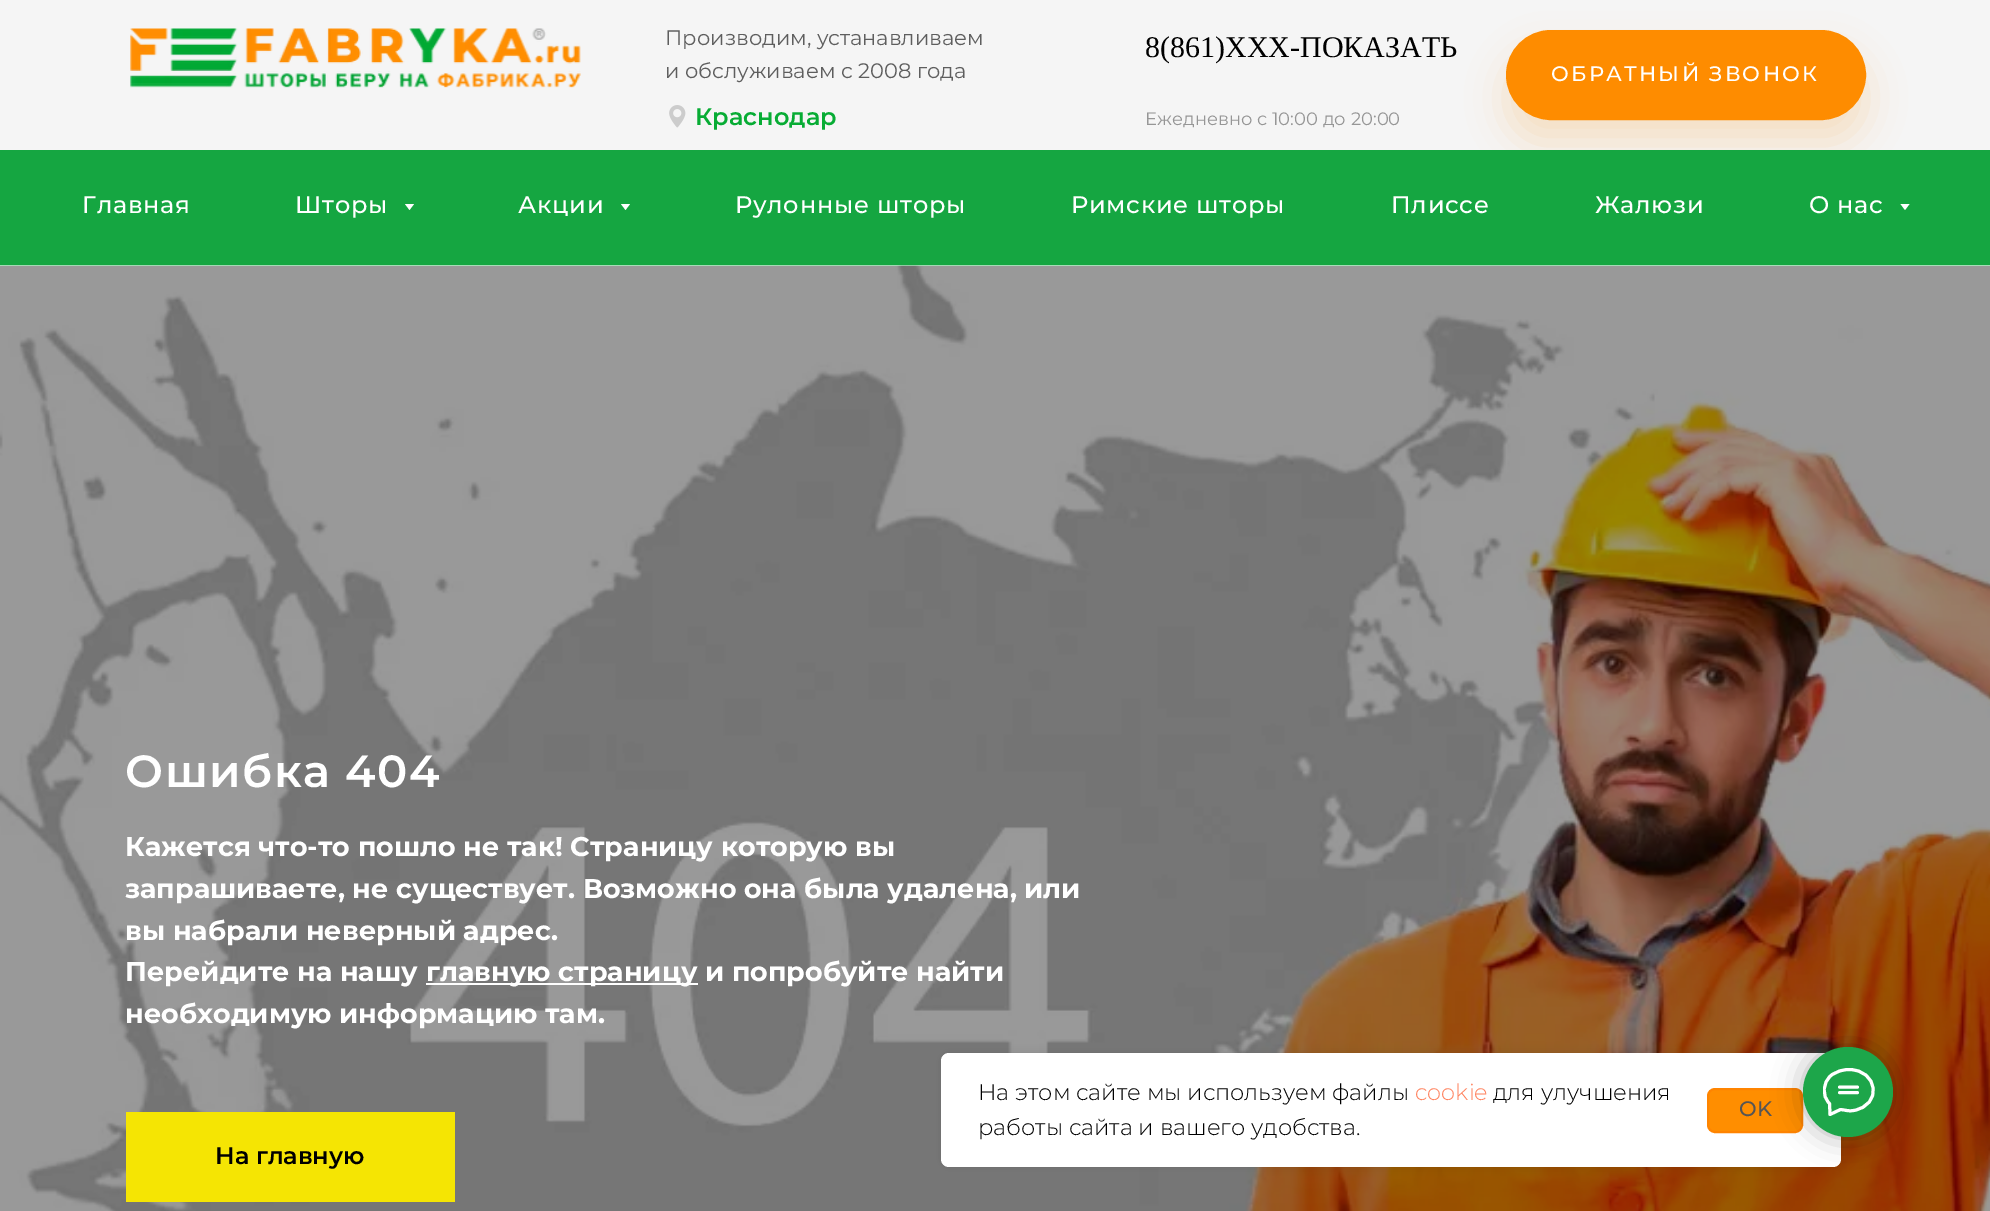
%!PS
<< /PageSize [1990 1211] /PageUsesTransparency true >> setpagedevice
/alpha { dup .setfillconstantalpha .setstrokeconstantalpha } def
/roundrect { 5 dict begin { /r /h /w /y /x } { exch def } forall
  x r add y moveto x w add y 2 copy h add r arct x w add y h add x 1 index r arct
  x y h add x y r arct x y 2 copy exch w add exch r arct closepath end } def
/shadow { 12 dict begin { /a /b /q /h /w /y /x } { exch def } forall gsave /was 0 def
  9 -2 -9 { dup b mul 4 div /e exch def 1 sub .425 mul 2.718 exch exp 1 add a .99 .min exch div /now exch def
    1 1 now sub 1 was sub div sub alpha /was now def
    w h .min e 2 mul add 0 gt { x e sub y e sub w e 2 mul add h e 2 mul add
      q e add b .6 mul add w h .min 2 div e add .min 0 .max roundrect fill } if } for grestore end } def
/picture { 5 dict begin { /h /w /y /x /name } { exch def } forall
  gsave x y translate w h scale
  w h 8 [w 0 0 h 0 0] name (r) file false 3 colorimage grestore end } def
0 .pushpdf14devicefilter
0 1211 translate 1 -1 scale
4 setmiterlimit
0.082 0.651 0.255 setrgbcolor
0 0 1990 1211 rectfill
0.961 setgray
0 0 1990 150 rectfill
(img1.rgb) 130 28 451 60 picture
/Montserrat-Regular [21 0 0 -21 0 0] selectfont
0.369 setgray
665 45 moveto (Производим, устанавливаем) show
665 78 moveto (и обслуживаем с 2008 года) show
gsave
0 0 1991 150 rectclip
0.996 0.549 0 setrgbcolor
1506 53 360 90 45 19 0.2 shadow
grestore
/LiberationSerif-Regular [30 0 0 -30 0 0] selectfont
0 setgray
1145 57 moveto (8\(861\)XXX-ПОКАЗАТЬ) show
0.996 0.549 0 setrgbcolor
1507 31 358 88 44 roundrect gsave fill grestore
2 setlinewidth
stroke
/Montserrat-Medium [21 0 0 -21 0 0] selectfont
1 setgray
1551 81 moveto 2.25 0 (ОБРАТНЫЙ ЗВОНОК) ashow
(img2.rgb) 669 105 17 23 picture
/Montserrat-SemiBold [24 0 0 -24 0 0] selectfont
0.027 0.675 0.204 setrgbcolor
695 125 moveto (Краснодар) show
/Montserrat-Regular [18 0 0 -18 0 0] selectfont
0.588 setgray
1145 125 moveto (Ежедневно с 10:00 до 20:00) show
/Montserrat-Medium [24 0 0 -24 0 0] selectfont
1 setgray
82 213 moveto 0.75 0 (Главная) ashow
295 213 moveto 0.75 0 (Шторы) ashow
newpath 405 204 moveto 414 204 lineto 409.5 210 lineto closepath fill
518 213 moveto 0.75 0 (Акции) ashow
newpath 621 204 moveto 630 204 lineto 625.5 210 lineto closepath fill
735 213 moveto 0.75 0 (Рулонные шторы) ashow
1071 213 moveto 0.75 0 (Римские шторы) ashow
1391 213 moveto 0.75 0 (Плиссе) ashow
1595 213 moveto 0.75 0 (Жалюзи) ashow
1809 213 moveto 0.75 0 (О нас) ashow
newpath 1900.5 204 moveto 1909.5 204 lineto 1905 210 lineto closepath fill
(img3.rgb) 0 265 1990 651 picture
(img4.rgb) 0 265 1990 946 picture
/Montserrat-SemiBold [45 0 0 -45 0 0] selectfont
125 787 moveto 1.5 0 (Ошибка 404) ashow
/Montserrat-Bold [27 0 0 -27 0 0] selectfont
125 856 moveto (Кажется что-то пошло не так! Страницу которую вы) show
125 898 moveto (запрашиваете, не существует. Возможно она была удалена, или) show
125 940 moveto (вы набрали неверный адрес.) show
125 981 moveto (Перейдите на нашу) show
426 983 272 2 rectfill
426 981 moveto (главную страницу и попробуйте найти) show
125 1023 moveto (необходимую информацию там.) show
0.961 0.898 0.012 setrgbcolor
126 1112 329 90 rectfill
/Montserrat-SemiBold [24 0 0 -24 0 0] selectfont
0 setgray
215 1164 moveto (На главную) show
941 1053 900 114 8 4 0.1 shadow
1 setgray
941 1053 900 114 8 roundrect fill
/Montserrat-Light [22.5 0 0 -22.5 0 0] selectfont
0 setgray
978 1100 moveto (На этом сайте мы используем файлы) show
1 0.522 0.384 setrgbcolor
1415 1100 moveto (cookie) show
0 setgray
1493 1100 moveto (для улучшения) show
978 1135 moveto (работы сайта и вашего удобства.) show
1 0.557 0 setrgbcolor
1708 1089 94 43 7 roundrect gsave fill grestore
1 0.518 0 setrgbcolor
stroke
/Montserrat-Medium [21 0 0 -21 0 0] selectfont
0.333 setgray
1739 1116 moveto (OK) show
0 setgray
1803 1047 90 90 45 15 0.3 shadow
0.114 0.651 0.29 setrgbcolor
newpath 1848 1092 45 0 360 arc closepath fill
gsave
1823 1068 52 48 rectclip
1 setgray
3 setlinewidth
1 setlinecap
1 setlinejoin
newpath 1839.5 1087 moveto 1857.5 1087 lineto 1839.5 1092.5 moveto 1857.5 1092.5 lineto 1829.5 1103.5 moveto 1821.5 1095.5 1822.5 1083 1831 1075.5 curveto 1836 1071.5 1842.5 1069.5 1849 1069.5 curveto 1878 1069.5 1883 1105.5 1853.5 1110.5 curveto 1848.5 1111.5 1845.5 1110 1840.5 1109.5 curveto 1830 1114.5 lineto closepath stroke
grestore
.poppdf14devicefilter showpage
